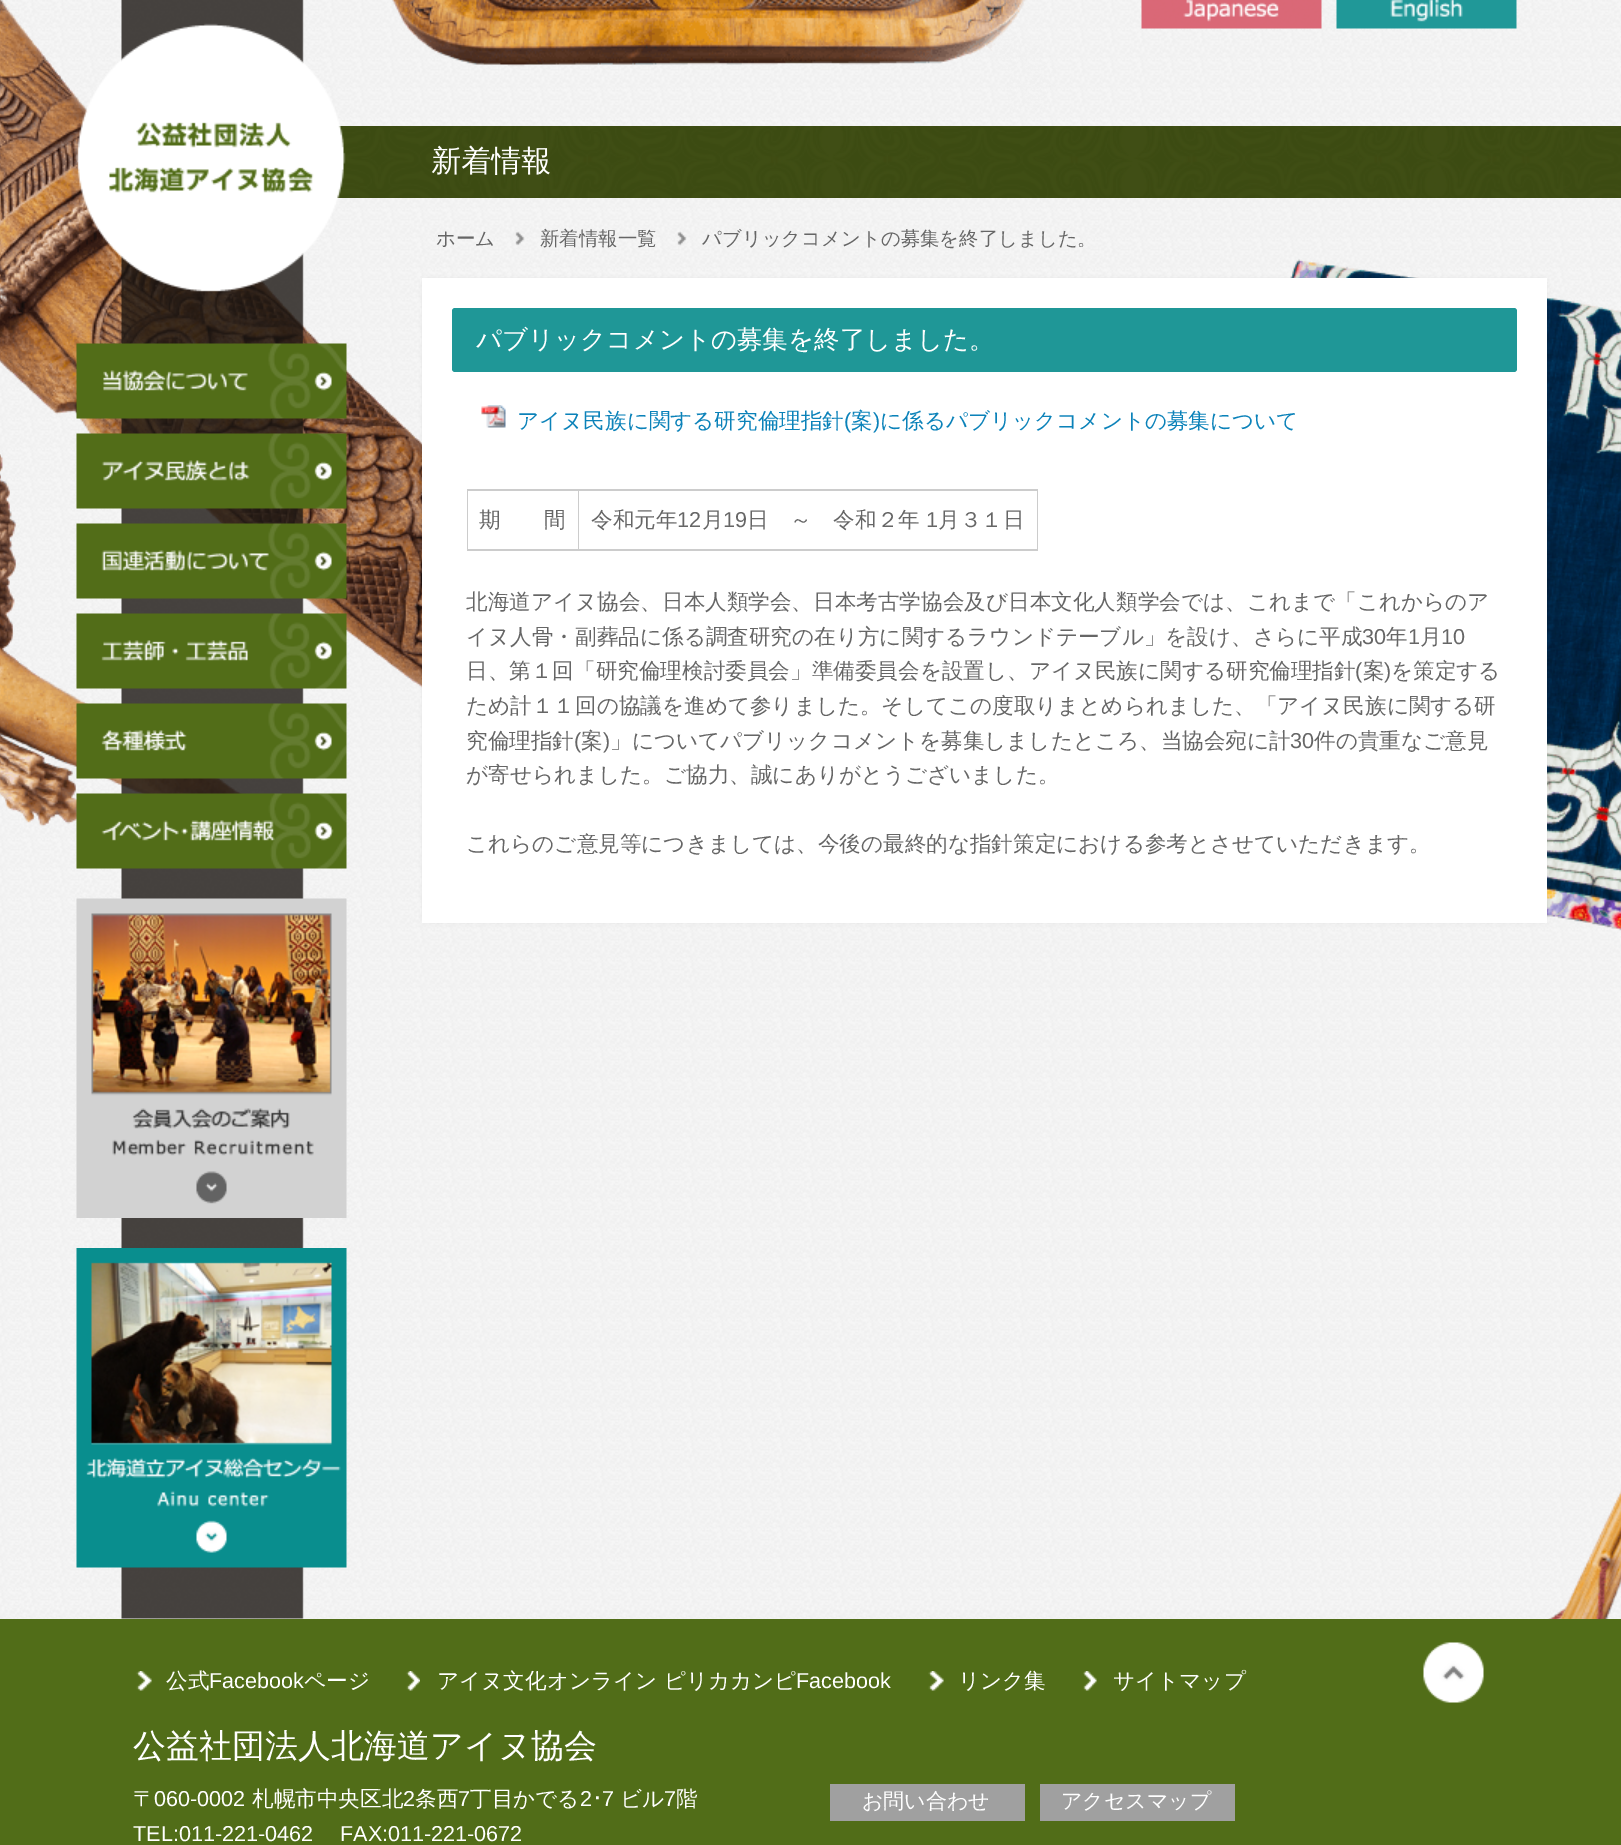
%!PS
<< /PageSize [1621 1845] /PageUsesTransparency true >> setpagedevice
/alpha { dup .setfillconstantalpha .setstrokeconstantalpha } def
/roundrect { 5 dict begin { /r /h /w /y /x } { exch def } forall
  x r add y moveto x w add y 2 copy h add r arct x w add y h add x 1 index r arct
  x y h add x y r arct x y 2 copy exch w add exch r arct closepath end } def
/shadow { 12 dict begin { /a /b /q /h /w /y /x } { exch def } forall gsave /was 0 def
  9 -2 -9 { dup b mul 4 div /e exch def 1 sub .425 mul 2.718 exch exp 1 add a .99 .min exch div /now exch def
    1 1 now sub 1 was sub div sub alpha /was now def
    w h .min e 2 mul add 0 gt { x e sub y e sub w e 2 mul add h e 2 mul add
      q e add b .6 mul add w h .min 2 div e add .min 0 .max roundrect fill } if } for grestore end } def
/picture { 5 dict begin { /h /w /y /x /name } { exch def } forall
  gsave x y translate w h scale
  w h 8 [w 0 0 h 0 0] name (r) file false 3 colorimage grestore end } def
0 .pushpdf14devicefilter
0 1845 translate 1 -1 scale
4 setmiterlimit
1 setgray
0 0 1621 1845 rectfill
(img1.rgb) 0 0 1621 1619 picture
(img3.rgb) 40 126 1581 72 picture
/WenQuanYiZenHei-Bold [30 0 0 -30 0 0] selectfont
431 171 moveto (新着情報) show
(img2.rgb) 0 0 1621 1619 picture
(img4.rgb) 121 0 183 1619 picture
(img5.rgb) 76 23 270 269 picture
(img6.rgb) 76 343 271 76 picture
(img7.rgb) 76 433 271 76 picture
(img8.rgb) 76 523 271 76 picture
(img9.rgb) 76 613 271 76 picture
(img10.rgb) 76 703 271 76 picture
(img11.rgb) 76 793 271 76 picture
(img12.rgb) 76 898 271 320 picture
(img13.rgb) 76 1248 271 320 picture
(img14.rgb) 1141 0 181 29 picture
(img15.rgb) 1336 0 181 29 picture
/WenQuanYiZenHei-Medium [19.4 0 0 -19.4 0 0] selectfont
0.4 setgray
436 245 moveto (ホーム) show
(img16.rgb) 515 231 10 15 picture
540 245 moveto (新着情報一覧) show
(img17.rgb) 677 231 10 15 picture
702 245 moveto (パブリックコメントの募集を終了しました。) show
0.259 setgray
425 281 1119 639 0 3 0.24 shadow
1 setgray
422 278 1125 645 rectfill
0.122 0.592 0.592 setrgbcolor
452 308 1065 64 3 roundrect fill
/WenQuanYiZenHei-Medium [25.5 0 0 -25.5 0 0] selectfont
1 setgray
476 348 moveto (パブリックコメントの募集を終了しました。) show
(img18.rgb) 481 405 25 23 picture
/WenQuanYiZenHei-Medium [21.6 0 0 -21.6 0 0] selectfont
0.043 0.51 0.725 setrgbcolor
517 428 moveto (アイヌ民族に関する研究倫理指針) show
/LiberationSans-Regular [21.6 0 0 -21.6 0 0] selectfont
844 428 moveto (\() show
/WenQuanYiZenHei-Medium [21.6 0 0 -21.6 0 0] selectfont
851 428 moveto (案) show
/LiberationSans-Regular [21.6 0 0 -21.6 0 0] selectfont
873 428 moveto (\)) show
/WenQuanYiZenHei-Medium [21.6 0 0 -21.6 0 0] selectfont
880 428 moveto (に係るパブリックコメントの募集について) show
0.8 setgray
467 489 571 62 rectfill
1 setgray
468 491 110 58 rectfill
0.4 setgray
479 527 moveto (期　　間) show
1 setgray
579 491 458 58 rectfill
0.4 setgray
591 527 moveto (令和元年) show
/LiberationSans-Regular [21.6 0 0 -21.6 0 0] selectfont
677 527 moveto (12) show
/WenQuanYiZenHei-Medium [21.6 0 0 -21.6 0 0] selectfont
702 527 moveto (月) show
/LiberationSans-Regular [21.6 0 0 -21.6 0 0] selectfont
723 527 moveto (19) show
/WenQuanYiZenHei-Medium [21.6 0 0 -21.6 0 0] selectfont
747 527 moveto (日　～　令和２年) show
/LiberationSans-Regular [21.6 0 0 -21.6 0 0] selectfont
926 527 moveto (1) show
/WenQuanYiZenHei-Medium [21.6 0 0 -21.6 0 0] selectfont
938 527 moveto (月３１日) show
466 609 moveto (北海道アイヌ協会、日本人類学会、日本考古学協会及び日本文化人類学会では、これまで「これからのア) show
466 644 moveto (イヌ人骨・副葬品に係る調査研究の在り方に関するラウンドテーブル」を設け、さらに平成) show
/LiberationSans-Regular [21.6 0 0 -21.6 0 0] selectfont
1362 644 moveto (30) show
/WenQuanYiZenHei-Medium [21.6 0 0 -21.6 0 0] selectfont
1386 644 moveto (年) show
/LiberationSans-Regular [21.6 0 0 -21.6 0 0] selectfont
1408 644 moveto (1) show
/WenQuanYiZenHei-Medium [21.6 0 0 -21.6 0 0] selectfont
1420 644 moveto (月) show
/LiberationSans-Regular [21.6 0 0 -21.6 0 0] selectfont
1441 644 moveto (10) show
/WenQuanYiZenHei-Medium [21.6 0 0 -21.6 0 0] selectfont
466 678 moveto (日、第１回「研究倫理検討委員会」準備委員会を設置し、アイヌ民族に関する研究倫理指針) show
/LiberationSans-Regular [21.6 0 0 -21.6 0 0] selectfont
1355 678 moveto (\() show
/WenQuanYiZenHei-Medium [21.6 0 0 -21.6 0 0] selectfont
1363 678 moveto (案) show
/LiberationSans-Regular [21.6 0 0 -21.6 0 0] selectfont
1384 678 moveto (\)) show
/WenQuanYiZenHei-Medium [21.6 0 0 -21.6 0 0] selectfont
1391 678 moveto (を策定する) show
466 713 moveto (ため計１１回の協議を進めて参りました。そしてこの度取りまとめられました、「) show
1277 713 moveto (アイヌ民族に関する研) show
466 748 moveto (究倫理指針) show
/LiberationSans-Regular [21.6 0 0 -21.6 0 0] selectfont
574 748 moveto (\() show
/WenQuanYiZenHei-Medium [21.6 0 0 -21.6 0 0] selectfont
581 748 moveto (案) show
/LiberationSans-Regular [21.6 0 0 -21.6 0 0] selectfont
603 748 moveto (\)) show
/WenQuanYiZenHei-Medium [21.6 0 0 -21.6 0 0] selectfont
610 748 moveto (」についてパブリックコメントを) show
941 748 moveto (募集しましたところ、当協会宛に計) show
/LiberationSans-Regular [21.6 0 0 -21.6 0 0] selectfont
1290 748 moveto (30) show
/WenQuanYiZenHei-Medium [21.6 0 0 -21.6 0 0] selectfont
1314 748 moveto (件の貴重なご意見) show
466 782 moveto (が寄せられました。ご協力、誠にありがとうございました。) show
466 851 moveto (これらのご意見等につきましては、今後の最終的な指針策定における参考とさせていただきます。) show
0.318 0.427 0.094 setrgbcolor
0 1619 1621 226 rectfill
(img19.rgb) 136 1671 16 20 picture
1 setgray
166 1688 moveto (公式) show
/LiberationSans-Regular [21.6 0 0 -21.6 0 0] selectfont
209 1688 moveto (Facebook) show
/WenQuanYiZenHei-Medium [21.6 0 0 -21.6 0 0] selectfont
304 1688 moveto (ページ) show
(img20.rgb) 406 1671 14 20 picture
437 1688 moveto (アイヌ文化オンライン ピリカカンピ) show
/LiberationSans-Regular [21.6 0 0 -21.6 0 0] selectfont
796 1688 moveto (Facebook) show
(img19.rgb) 928 1671 16 20 picture
/WenQuanYiZenHei-Medium [21.6 0 0 -21.6 0 0] selectfont
958 1688 moveto (リンク集) show
(img21.rgb) 1083 1671 14 20 picture
1113 1688 moveto (サイトマップ) show
(img22.rgb) 1423 1642 61 61 picture
/WenQuanYiZenHei-Medium [33 0 0 -33 0 0] selectfont
133 1757 moveto (公益社団法人北海道アイヌ協会) show
/WenQuanYiZenHei-Medium [21.6 0 0 -21.6 0 0] selectfont
133 1806 moveto (〒) show
/LiberationSans-Regular [21.6 0 0 -21.6 0 0] selectfont
154 1806 moveto (060-0002) show
/WenQuanYiZenHei-Medium [21.6 0 0 -21.6 0 0] selectfont
252 1806 moveto (札幌市中央区北) show
/LiberationSans-Regular [21.6 0 0 -21.6 0 0] selectfont
403 1806 moveto (2) show
/WenQuanYiZenHei-Medium [21.6 0 0 -21.6 0 0] selectfont
415 1806 moveto (条西) show
/LiberationSans-Regular [21.6 0 0 -21.6 0 0] selectfont
458 1806 moveto (7) show
/WenQuanYiZenHei-Medium [21.6 0 0 -21.6 0 0] selectfont
470 1806 moveto (丁目かでる) show
/LiberationSans-Regular [21.6 0 0 -21.6 0 0] selectfont
580 1806 moveto (2) show
/IPAPGothic-Regular [21.6 0 0 -21.6 0 0] selectfont
592 1806 moveto (･) show
/LiberationSans-Regular [21.6 0 0 -21.6 0 0] selectfont
602 1806 moveto (7) show
/WenQuanYiZenHei-Medium [21.6 0 0 -21.6 0 0] selectfont
620 1806 moveto (ビル) show
/LiberationSans-Regular [21.6 0 0 -21.6 0 0] selectfont
664 1806 moveto (7) show
/WenQuanYiZenHei-Medium [21.6 0 0 -21.6 0 0] selectfont
676 1806 moveto (階) show
/LiberationSans-Regular [21.6 0 0 -21.6 0 0] selectfont
133 1841 moveto (TEL:011-221-0462) show
340 1841 moveto (FAX:011-221-0672) show
0.627 setgray
830 1784 195 37 rectfill
/WenQuanYiZenHei-Medium [21 0 0 -21 0 0] selectfont
1 setgray
862 1808 moveto (お問い合わせ) show
0.627 setgray
1040 1784 195 37 rectfill
1 setgray
1061 1808 moveto (アクセスマップ) show
.poppdf14devicefilter showpage
